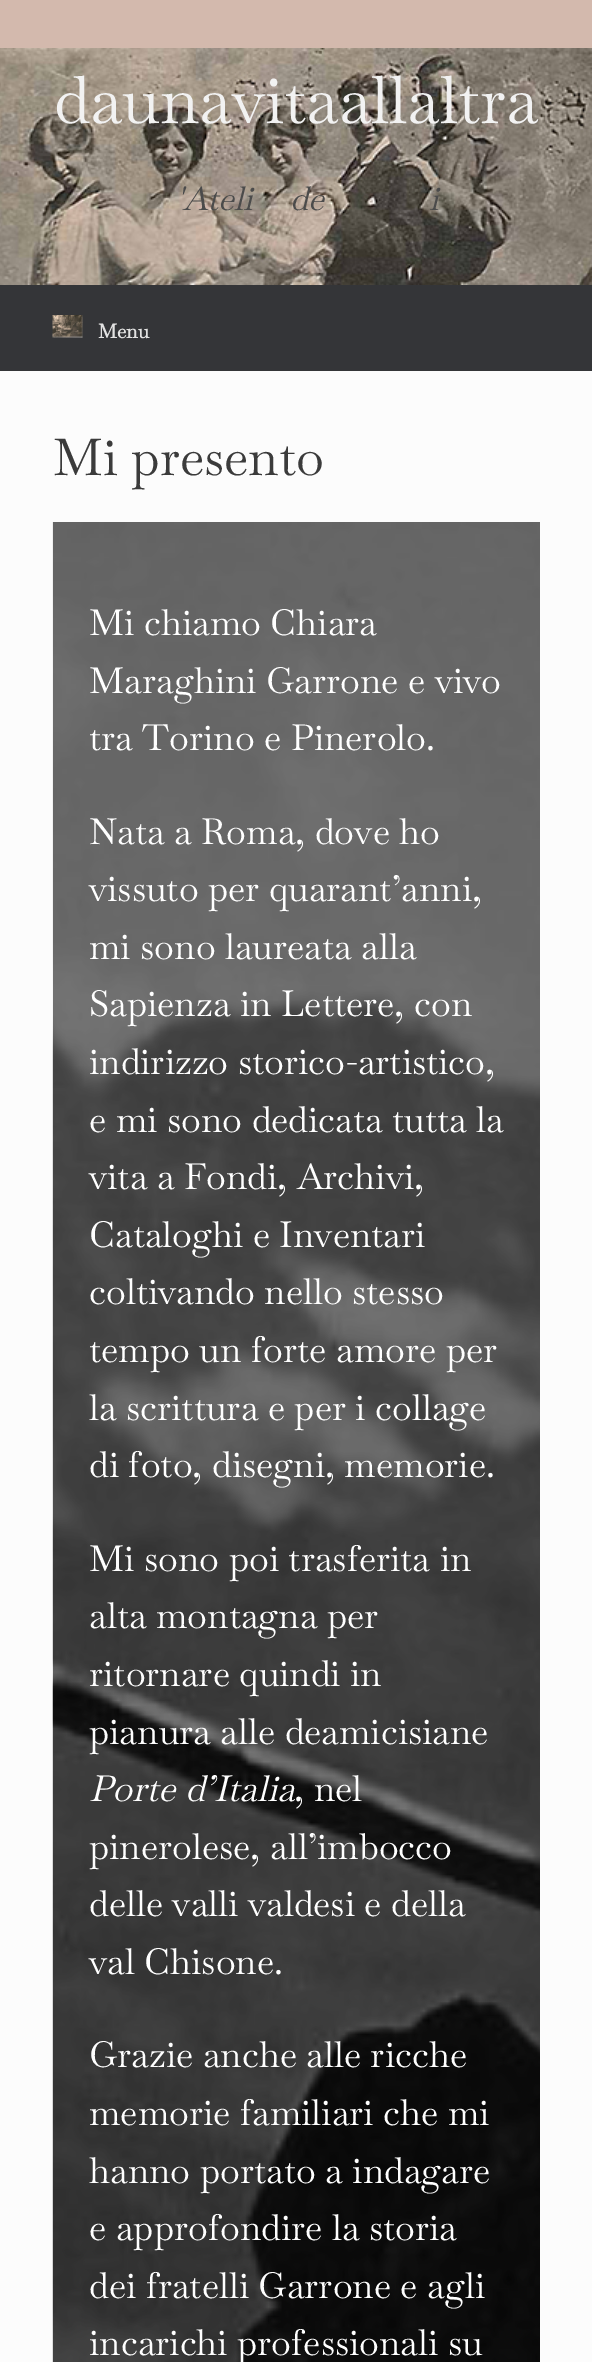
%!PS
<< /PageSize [592 2362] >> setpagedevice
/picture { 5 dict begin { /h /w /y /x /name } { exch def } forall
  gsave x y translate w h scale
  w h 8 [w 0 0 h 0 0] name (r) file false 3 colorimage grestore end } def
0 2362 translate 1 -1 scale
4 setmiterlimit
0.827 0.725 0.678 setrgbcolor
0 0 592 2362 rectfill
(img1.rgb) 0 48 592 237 picture
/Baskervville-Regular [66 0 0 -66 0 0] selectfont
0.949 setgray
54 123 moveto (daunavitaallaltra) show
/Baskervville-Italic [33 0 0 -33 0 0] selectfont
0.294 setgray
176 210 moveto ('Ateli) show
290 210 moveto (de) show
429 210 moveto (i) show
0.204 0.208 0.22 setrgbcolor
0 285 592 86 rectfill
(img2.rgb) 52 315 31 23 picture
/Baskervville-Bold [19.5 0 0 -19.5 0 0] selectfont
0.886 setgray
98 338 moveto (Menu) show
0.988 setgray
0 371 592 1991 rectfill
/Baskervville-Regular [51 0 0 -51 0 0] selectfont
0.231 setgray
53 475 moveto (Mi presento) show
(img3.rgb) 52 522 488 1840 picture
/Baskervville-Regular [36 0 0 -36 0 0] selectfont
1 setgray
89 635 moveto (Mi chiamo Chiara) show
89 693 moveto (Maraghini Garrone e vivo) show
89 750 moveto (tra Torino e Pinerolo.) show
89 844 moveto (Nata a Roma, dove ho) show
89 901 moveto (vissuto per quarant’anni,) show
89 959 moveto (mi sono laureata alla) show
89 1016 moveto (Sapienza in Lettere, con) show
89 1074 moveto (indirizzo storico-artistico,) show
89 1132 moveto (e mi sono dedicata tutta la) show
89 1189 moveto (vita a Fondi, Archivi,) show
89 1247 moveto (Cataloghi e Inventari) show
89 1304 moveto (coltivando nello stesso) show
89 1362 moveto (tempo un forte amore per) show
89 1420 moveto (la scrittura e per i collage) show
89 1477 moveto (di foto, disegni, memorie.) show
89 1571 moveto (Mi sono poi trasferita in) show
89 1628 moveto (alta montagna per) show
89 1686 moveto (ritornare quindi in) show
89 1744 moveto (pianura alle deamicisiane) show
/Baskervville-Italic [36 0 0 -36 0 0] selectfont
89 1801 moveto (Porte d’Italia) show
/Baskervville-Regular [36 0 0 -36 0 0] selectfont
294 1801 moveto (, nel) show
89 1859 moveto (pinerolese, all’imbocco) show
89 1916 moveto (delle valli valdesi e della) show
89 1974 moveto (val Chisone.) show
89 2067 moveto (Grazie anche alle ricche) show
89 2125 moveto (memorie familiari che mi) show
89 2183 moveto (hanno portato a indagare) show
89 2240 moveto (e approfondire la storia) show
89 2298 moveto (dei fratelli Garrone e agli) show
89 2355 moveto (incarichi professionali su) show
showpage
